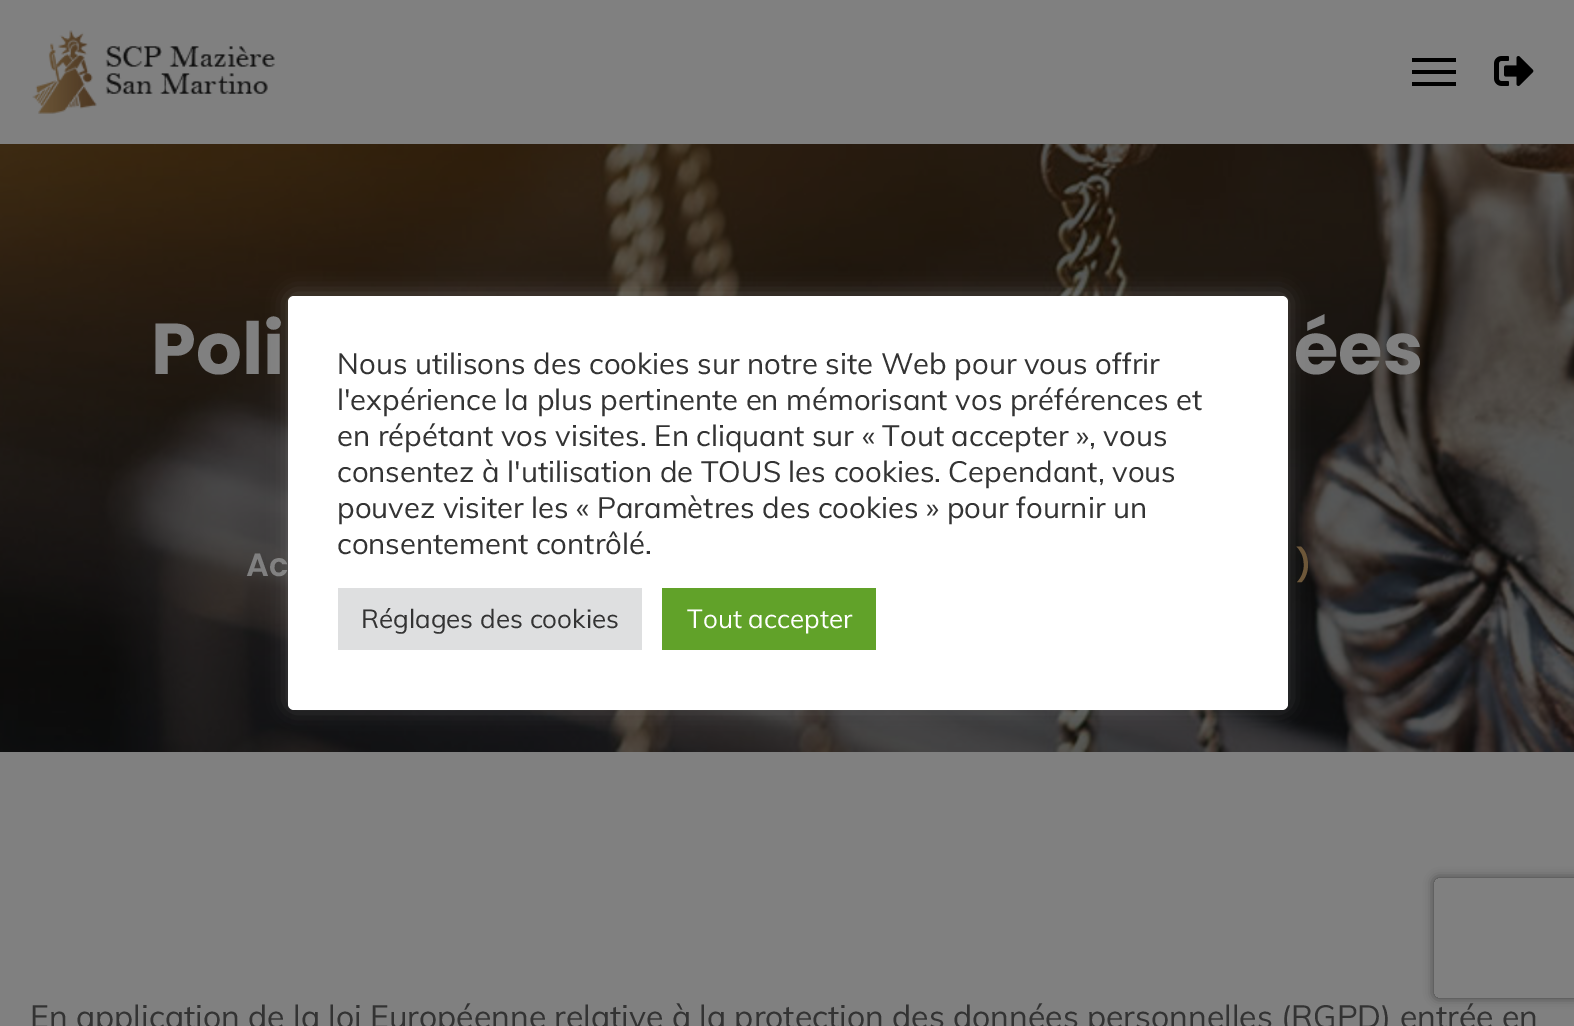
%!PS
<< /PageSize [1574 1026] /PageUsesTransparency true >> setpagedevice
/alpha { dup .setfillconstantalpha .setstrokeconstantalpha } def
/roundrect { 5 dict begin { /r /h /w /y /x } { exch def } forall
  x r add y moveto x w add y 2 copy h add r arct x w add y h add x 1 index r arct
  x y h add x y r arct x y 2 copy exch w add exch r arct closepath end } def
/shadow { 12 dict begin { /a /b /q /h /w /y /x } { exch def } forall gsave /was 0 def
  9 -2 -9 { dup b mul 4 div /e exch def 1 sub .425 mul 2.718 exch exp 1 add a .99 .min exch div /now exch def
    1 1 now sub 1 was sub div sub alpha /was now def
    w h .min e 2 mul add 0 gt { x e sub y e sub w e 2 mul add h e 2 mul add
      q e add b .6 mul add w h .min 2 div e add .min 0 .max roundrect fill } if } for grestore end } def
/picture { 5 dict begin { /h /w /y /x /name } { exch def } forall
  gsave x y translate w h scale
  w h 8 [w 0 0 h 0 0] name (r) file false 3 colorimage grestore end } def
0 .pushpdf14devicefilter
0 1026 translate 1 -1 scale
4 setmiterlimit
0.502 setgray
0 0 1574 1026 rectfill
(img1.rgb) 32 30 243 84 picture
0 setgray
1412 58 44 4 rectfill
1412 70 44 4 rectfill
1412 82 44 4 rectfill
(img2.rgb) 1494 56 40 30 picture
(img3.rgb) 0 144 1574 608 picture
/Poppins-Bold [72 0 0 -72 0 0] selectfont
0.502 setgray
151 374 moveto (Poli) show
1294 374 moveto (ées) show
/Poppins-SemiBold [32 0 0 -32 0 0] selectfont
246 576 moveto (Ac) show
0.42 0.333 0.216 setrgbcolor
1296 576 moveto (\)) show
gsave
newpath 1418 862 moveto 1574 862 lineto 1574 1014 lineto 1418 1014 lineto closepath 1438 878 moveto 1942 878 lineto 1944 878 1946 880 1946 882 curveto 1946 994 lineto 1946 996 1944 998 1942 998 curveto 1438 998 lineto 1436 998 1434 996 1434 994 curveto 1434 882 lineto 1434 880 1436 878 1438 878 curveto closepath eoclip newpath
0.251 setgray
1434 878 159 120 4 5 1 shadow
grestore
/Muli-Regular [32 0 0 -32 0 0] selectfont
0.2 setgray
30 1028 moveto (En application de la loi Européenne relative à la protection des données personnelles \(RGPD\) entrée en) show
0.675 0.671 0.671 setrgbcolor
288 294 1000 414 6 10 0.3 shadow
1 setgray
288 296 1000 414 6 roundrect fill
/Muli-Regular [29.3 0 0 -29.3 0 0] selectfont
0.2 setgray
337 374 moveto (Nous utilisons des cookies sur notre site Web pour vous offrir) show
337 410 moveto (l'expérience la plus pertinente en mémorisant vos préférences et) show
337 446 moveto (en répétant vos visites. En cliquant sur « Tout accepter », vous) show
337 482 moveto (consentez à l'utilisation de TOUS les cookies. Cependant, vous) show
337 518 moveto (pouvez visiter les « Paramètres des cookies » pour fournir un) show
337 554 moveto (consentement contrôlé.) show
0.871 0.875 0.878 setrgbcolor
338 588 304 62 rectfill
/Muli-Regular [26 0 0 -26 0 0] selectfont
0.2 setgray
361 628 moveto (Réglages des cookies) show
0.38 0.635 0.161 setrgbcolor
662 588 214 62 rectfill
1 setgray
687 628 moveto (Tout accepter) show
.poppdf14devicefilter showpage
